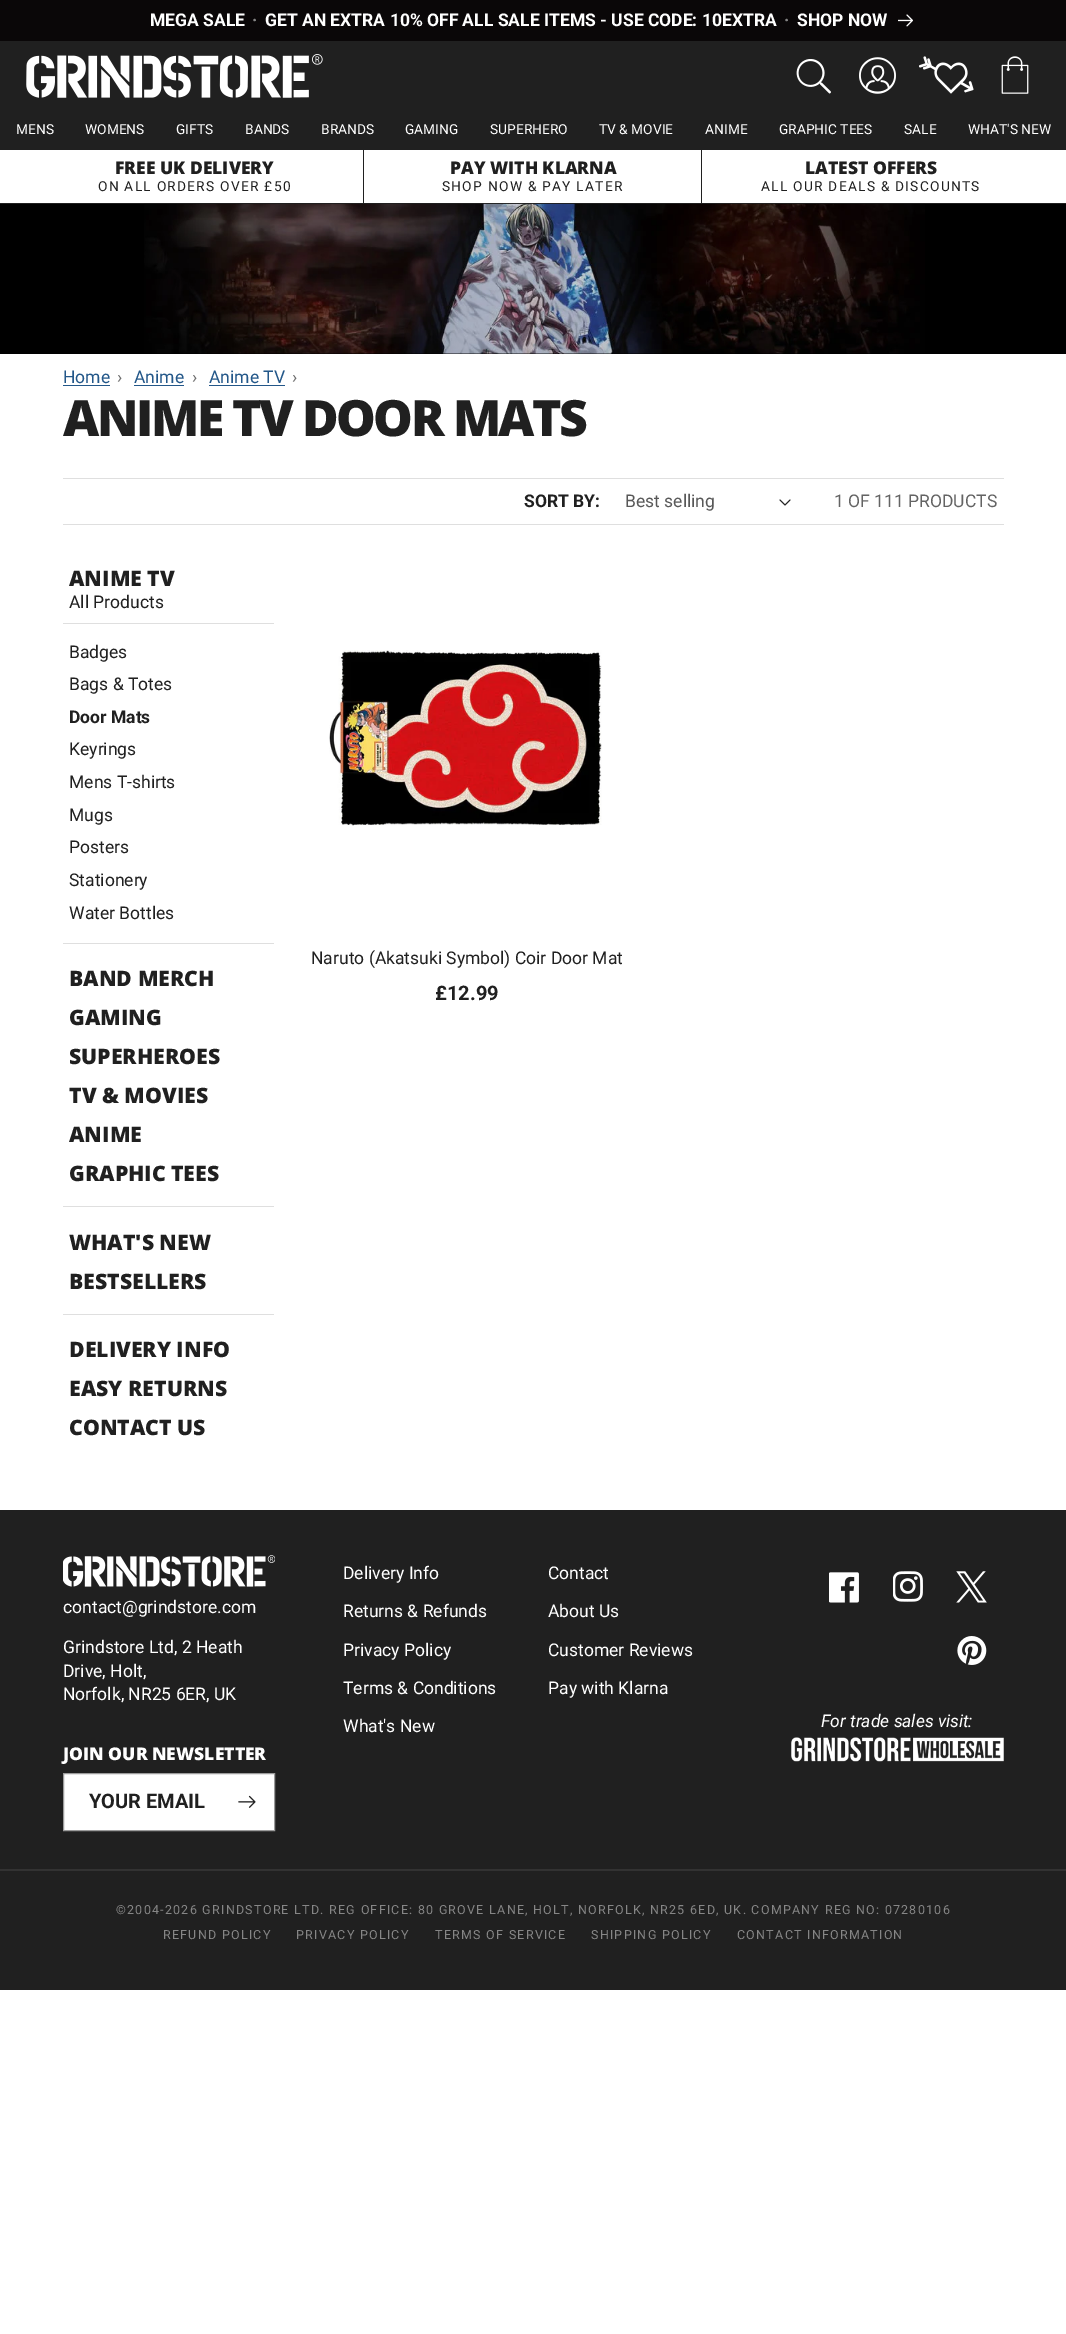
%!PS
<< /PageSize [1066 2334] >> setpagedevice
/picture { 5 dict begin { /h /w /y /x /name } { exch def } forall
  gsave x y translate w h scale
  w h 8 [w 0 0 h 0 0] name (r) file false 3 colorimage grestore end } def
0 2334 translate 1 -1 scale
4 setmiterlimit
1 setgray
0 0 1066 2334 rectfill
0.039 0.027 0.031 setrgbcolor
0 0 1066 41 rectfill
/Roboto-Bold [17.5 0 0 -17.5 0 0] selectfont
1 setgray
150 26 moveto (MEGA SALE) show
0.525 setgray
252 26 moveto (·) show
1 setgray
265 26 moveto (GET AN EXTRA 10% OFF ALL SALE ITEMS - USE CODE: 10EXTRA) show
0.525 setgray
784 26 moveto (·) show
1 setgray
797 26 moveto (SHOP NOW) show
(img1.rgb) 898 14 15 13 picture
0.125 setgray
0 41 1066 109 rectfill
(img2.rgb) 26 54 297 44 picture
(img3.rgb) 796 59 35 35 picture
(img4.rgb) 859 57 37 37 picture
(img5.rgb) 919 56 55 38 picture
(img6.rgb) 1001 56 28 38 picture
/Roboto-Regular [13.75 0 0 -13.75 0 0] selectfont
1 setgray
16 134 moveto (MENS) show
85 134 moveto (WOMENS) show
176 134 moveto (GIFTS) show
245 134 moveto (BANDS) show
321 134 moveto (BRANDS) show
405 134 moveto (GAMING) show
490 134 moveto (SUPERHERO) show
599 134 moveto (TV & MOVIE) show
705 134 moveto (ANIME) show
779 134 moveto (GRAPHIC TEES) show
904 134 moveto (SALE) show
968 134 moveto (WHAT'S NEW) show
0.125 setgray
0 203 1066 1 rectfill
363 150 1 53 rectfill
/OpenSans-ExtraBold [17.5 0 0 -17.5 0 0] selectfont
115 174 moveto (FREE UK DELIVERY) show
/Roboto-Regular [13.75 0 0 -13.75 0 0] selectfont
98 191 moveto 1.25 0 (ON ALL ORDERS OVER £50) ashow
/OpenSans-ExtraBold [17.5 0 0 -17.5 0 0] selectfont
450 174 moveto (PAY WITH KLARNA) show
/Roboto-Regular [13.75 0 0 -13.75 0 0] selectfont
442 191 moveto 1.25 0 (SHOP NOW & PAY LATER) ashow
701 150 1 53 rectfill
/OpenSans-ExtraBold [17.5 0 0 -17.5 0 0] selectfont
805 174 moveto (LATEST OFFERS) show
/Roboto-Regular [13.75 0 0 -13.75 0 0] selectfont
761 191 moveto 1.25 0 (ALL OUR DEALS & DISCOUNTS) ashow
0 setgray
0 204 1066 150 rectfill
(img7.rgb) 144 203 781 151 picture
/Roboto-Regular [17.5 0 0 -17.5 0 0] selectfont
0.137 0.341 0.537 setrgbcolor
63 383 moveto (Home) show
63 385 47 1 rectfill
0.427 setgray
117 383 moveto (›) show
0.137 0.341 0.537 setrgbcolor
134 383 moveto (Anime) show
134 385 50 1 rectfill
0.427 setgray
192 383 moveto (›) show
0.137 0.341 0.537 setrgbcolor
209 383 moveto (Anime TV) show
209 385 76 1 rectfill
0.427 setgray
292 383 moveto (›) show
/OpenSans-ExtraBold [50 0 0 -50 0 0] selectfont
0.125 setgray
63 436 moveto -2.5 0 (ANIME TV DOOR MATS) ashow
0.875 setgray
63 478 941 1 rectfill
63 524 941 1 rectfill
/Roboto-Bold [17.5 0 0 -17.5 0 0] selectfont
0.125 setgray
524 507 moveto (SORT BY:) show
/Roboto-Regular [17.5 0 0 -17.5 0 0] selectfont
0.345 setgray
625 507 moveto (Best selling) show
(img8.rgb) 779 499 12 7 picture
0.392 setgray
834 507 moveto (1 OF 111 PRODUCTS) show
0.875 setgray
63 623 211 1 rectfill
/OpenSans-ExtraBold [21.25 0 0 -21.25 0 0] selectfont
0.125 setgray
69 586 moveto (ANIME TV) show
/Roboto-Regular [17.5 0 0 -17.5 0 0] selectfont
69 608 moveto (All Products) show
69 658 moveto (Badges) show
69 690 moveto (Bags & Totes) show
/Roboto-Bold [17.5 0 0 -17.5 0 0] selectfont
69 723 moveto (Door Mats) show
/Roboto-Regular [17.5 0 0 -17.5 0 0] selectfont
69 755 moveto (Keyrings) show
69 788 moveto (Mens T-shirts) show
69 821 moveto (Mugs) show
69 853 moveto (Posters) show
69 886 moveto (Stationery) show
69 919 moveto (Water Bottles) show
0.875 setgray
63 943 211 1 rectfill
/OpenSans-ExtraBold [21.25 0 0 -21.25 0 0] selectfont
0.125 setgray
69 986 moveto (BAND MERCH) show
69 1025 moveto (GAMING) show
69 1064 moveto (SUPERHEROES) show
69 1103 moveto (TV & MOVIES) show
69 1142 moveto (ANIME) show
69 1181 moveto (GRAPHIC TEES) show
0.875 setgray
63 1206 211 1 rectfill
0.125 setgray
69 1250 moveto (WHAT'S NEW) show
69 1289 moveto (BESTSELLERS) show
0.875 setgray
63 1314 211 1 rectfill
0.125 setgray
69 1357 moveto (DELIVERY INFO) show
69 1396 moveto (EASY RETURNS) show
69 1435 moveto (CONTACT US) show
(img9.rgb) 329 650 273 176 picture
/Roboto-Regular [17.5 0 0 -17.5 0 0] selectfont
311 964 moveto (Naruto \(Akatsuki Symbol\) Coir Door Mat) show
/Roboto-Bold [20 0 0 -20 0 0] selectfont
435 1000 moveto (£12.99) show
0 1510 1066 480 rectfill
(img10.rgb) 63 1555 212 32 picture
/Roboto-Regular [17.5 0 0 -17.5 0 0] selectfont
1 setgray
63 1613 moveto (contact@grindstore.com) show
63 1653 moveto (Grindstore Ltd, 2 Heath) show
63 1677 moveto (Drive, Holt,) show
63 1700 moveto (Norfolk, NR25 6ER, UK) show
/OpenSans-ExtraBold [17.5 0 0 -17.5 0 0] selectfont
63 1760 moveto (JOIN OUR NEWSLETTER) show
64 1774 210 56 rectfill
0.608 setgray
63.5 1773.5 211 57 rectstroke
/Roboto-Bold [20 0 0 -20 0 0] selectfont
0.125 setgray
89 1808 moveto (YOUR EMAIL) show
(img11.rgb) 238 1795 18 13 picture
/Roboto-Regular [17.5 0 0 -17.5 0 0] selectfont
1 setgray
343 1579 moveto (Delivery Info) show
343 1617 moveto (Returns & Refunds) show
343 1656 moveto (Privacy Policy) show
343 1694 moveto (Terms & Conditions) show
343 1732 moveto (What's New) show
548 1579 moveto (Contact) show
548 1617 moveto (About Us) show
548 1656 moveto (Customer Reviews) show
548 1694 moveto (Pay with Klarna) show
(img12.rgb) 829 1572 30 31 picture
(img13.rgb) 893 1571 30 31 picture
(img14.rgb) 956 1571 31 32 picture
(img15.rgb) 957 1636 30 29 picture
/Roboto-Italic [17.5 0 0 -17.5 0 0] selectfont
821 1727 moveto (For trade sales visit:) show
(img16.rgb) 791 1737 213 25 picture
0.196 setgray
0 1869 1066 2 rectfill
/Roboto-Regular [12.5 0 0 -12.5 0 0] selectfont
0.525 setgray
116 1914 moveto 1.25 0 (©2004-2026 GRINDSTORE LTD. REG OFFICE: 80 GROVE LANE, HOLT, NORFOLK, NR25 6ED, UK. COMPANY REG NO: 07280106) ashow
163 1939 moveto 1.25 0 (REFUND POLICY) ashow
296 1939 moveto 1.25 0 (PRIVACY POLICY) ashow
435 1939 moveto 1.25 0 (TERMS OF SERVICE) ashow
591 1939 moveto 1.25 0 (SHIPPING POLICY) ashow
737 1939 moveto 1.25 0 (CONTACT INFORMATION) ashow
showpage
